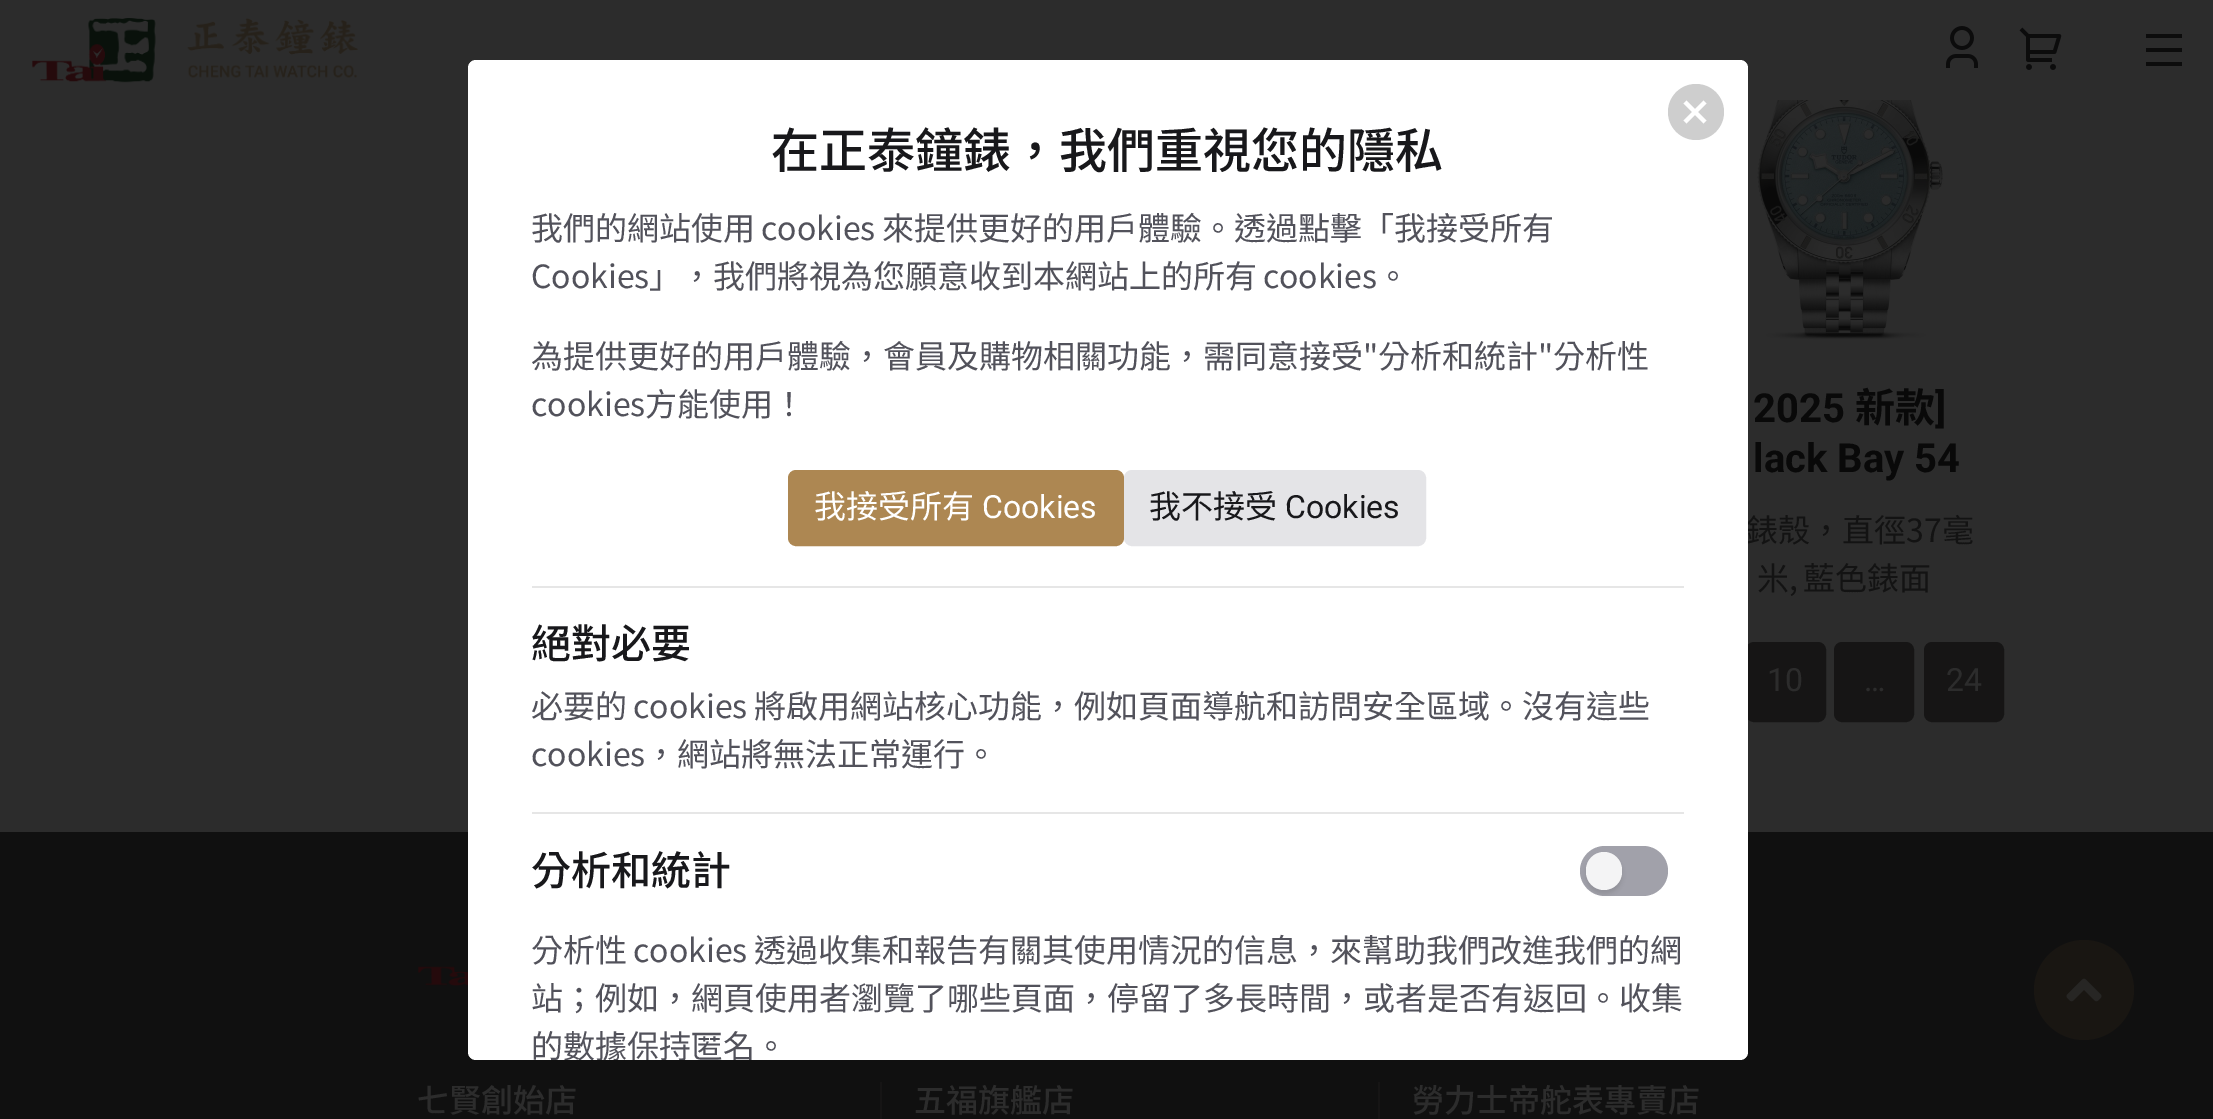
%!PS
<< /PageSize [2213 1119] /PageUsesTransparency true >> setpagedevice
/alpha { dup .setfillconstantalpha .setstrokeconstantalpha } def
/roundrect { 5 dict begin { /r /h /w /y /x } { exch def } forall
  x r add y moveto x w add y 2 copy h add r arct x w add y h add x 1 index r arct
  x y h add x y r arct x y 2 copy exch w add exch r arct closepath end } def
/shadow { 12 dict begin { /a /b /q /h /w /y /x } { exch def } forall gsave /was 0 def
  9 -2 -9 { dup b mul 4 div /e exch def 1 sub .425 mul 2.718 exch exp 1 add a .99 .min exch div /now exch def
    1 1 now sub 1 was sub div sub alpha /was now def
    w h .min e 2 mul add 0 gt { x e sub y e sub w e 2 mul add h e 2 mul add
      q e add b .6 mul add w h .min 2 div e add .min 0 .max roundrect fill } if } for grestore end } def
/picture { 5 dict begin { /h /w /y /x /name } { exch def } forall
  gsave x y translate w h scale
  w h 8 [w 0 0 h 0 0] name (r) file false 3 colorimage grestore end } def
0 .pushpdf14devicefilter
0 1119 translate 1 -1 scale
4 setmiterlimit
0.173 setgray
0 0 2213 1119 rectfill
(img1.rgb) 32 18 326 65 picture
(img2.rgb) 1946 26 32 42 picture
(img3.rgb) 2019 27 43 43 picture
0.047 setgray
newpath 2146 34 moveto 2182 34 lineto 2182 38 lineto 2146 38 lineto closepath 2146 48 moveto 2182 48 lineto 2182 52 lineto 2146 52 lineto closepath 2146 62 moveto 2182 62 lineto 2182 66 lineto 2146 66 lineto closepath fill
/NotoSansTC-Regular [32 0 0 -32 0 0] selectfont
0.075 setgray
1746 542 moveto (錶殼，直徑37毫) show
0.086 0.082 0.082 setrgbcolor
1747 643 78 78 7 roundrect gsave fill grestore
2 setlinewidth
stroke
0.063 setgray
0 832 2213 287 rectfill
1 setgray
468 60 1280 1000 8 roundrect fill
0.808 setgray
newpath 1696 112 28 0 360 arc closepath fill
1 setgray
newpath 1686.5 100.5 moveto 1706.5 120.5 lineto 1703.5 123.5 lineto 1683.5 103.5 lineto closepath fill
newpath 1703.5 100.5 moveto 1706.5 103.5 lineto 1686.5 123.5 lineto 1683.5 120.5 lineto closepath fill
/NotoSansTC-Medium [48 0 0 -48 0 0] selectfont
0.094 0.094 0.106 setrgbcolor
771 168 moveto (在正泰鐘錶，我們重視您的隱私) show
/NotoSansTC-Regular [32 0 0 -32 0 0] selectfont
0.322 0.322 0.357 setrgbcolor
531 240 moveto -1 0 32 (我們的網站使用 cookies) widthshow
882 240 moveto (來提供更好的用戶體驗。透過點擊「我接受所有) show
531 288 moveto -2 0 32 (Cookies」，我們將視為您願意收到本網站上的所有 cookies。) widthshow
531 368 moveto (為提供更好的用戶體驗，會員及購物相關功能，需同意接受"分析和統計"分析性) show
531 416 moveto (cookies方能使用！) show
0.678 0.529 0.322 setrgbcolor
789 471 334 74 7 roundrect gsave fill grestore
stroke
1 setgray
814 518 moveto (我接受所有) show
/Roboto-Regular [32 0 0 -32 0 0] selectfont
982 518 moveto (Cookies) show
0.894 0.894 0.906 setrgbcolor
1125 471 300 74 7 roundrect gsave fill grestore
stroke
/NotoSansTC-Regular [32 0 0 -32 0 0] selectfont
0.094 0.094 0.106 setrgbcolor
1149 518 moveto (我不接受) show
/Roboto-Regular [32 0 0 -32 0 0] selectfont
1285 518 moveto (Cookies) show
0.902 setgray
532 586 1152 2 rectfill
/NotoSansTC-Medium [40 0 0 -40 0 0] selectfont
0.094 0.094 0.106 setrgbcolor
531 658 moveto (絕對必要) show
/NotoSansTC-Regular [32 0 0 -32 0 0] selectfont
0.322 0.322 0.357 setrgbcolor
531 718 moveto -1 0 32 (必要的 cookies 將啟用網站核心功能，例如頁面導航和訪問安全區域。沒有這些) widthshow
531 766 moveto (cookies，網站將無法正常運行。) show
0.902 setgray
532 812 1152 2 rectfill
/NotoSansTC-Medium [40 0 0 -40 0 0] selectfont
0.094 0.094 0.106 setrgbcolor
531 885 moveto (分析和統計) show
0.631 0.631 0.667 setrgbcolor
1580 846 88 50 25 roundrect fill
0 setgray
1586 856 36 38 18 2 0.1 shadow
0.957 0.957 0.961 setrgbcolor
1586 852 36 38 18 roundrect fill
/NotoSansTC-Regular [32 0 0 -32 0 0] selectfont
0.322 0.322 0.357 setrgbcolor
531 962 moveto -1 0 32 (分析性 cookies 透過收集和報告有關其使用情況的信息，來幫助我們改進我們的網) widthshow
531 1010 moveto (站；例如，網頁使用者瀏覽了哪些頁面，停留了多長時間，或者是否有返回。收集) show
gsave
468 60 1280 1000 8 roundrect clip newpath
531 1058 moveto (的數據保持匿名。) show
grestore
(img4.rgb) 1748 100 288 244 picture
/Roboto-Bold [40 0 0 -40 0 0] selectfont
0.035 setgray
1753 422 moveto (2025) show
/NotoSansTC-Bold [40 0 0 -40 0 0] selectfont
1855 422 moveto (新款) show
/Roboto-Bold [40 0 0 -40 0 0] selectfont
1935 422 moveto (]) show
1753 472 moveto (lack Bay 54) show
/NotoSansTC-Regular [32 0 0 -32 0 0] selectfont
0.075 setgray
1757 590 moveto -2 0 32 (米, 藍色錶面) widthshow
/Roboto-Regular [32 0 0 -32 0 0] selectfont
0.173 setgray
1767 691 moveto (10) show
0.086 0.082 0.082 setrgbcolor
1835 643 78 78 7 roundrect gsave fill grestore
stroke
0.173 setgray
1864 691 moveto (…) show
0.086 0.082 0.082 setrgbcolor
1925 643 78 78 7 roundrect gsave fill grestore
stroke
0.173 setgray
1946 691 moveto (24) show
0.098 0.086 0.071 setrgbcolor
newpath 2084 990 50 0 360 arc closepath fill
(img5.rgb) 2066 978 36 24 picture
(img6.rgb) 418 966 50 20 picture
/NotoSansTC-Medium [32 0 0 -32 0 0] selectfont
0.173 setgray
417 1112 moveto (七賢創始店) show
0.086 0.082 0.082 setrgbcolor
880 1082 2 37 rectfill
0.173 setgray
914 1112 moveto (五福旗艦店) show
0.086 0.082 0.082 setrgbcolor
1378 1082 2 37 rectfill
0.173 setgray
1412 1112 moveto (勞力士帝舵表專賣店) show
.poppdf14devicefilter showpage
